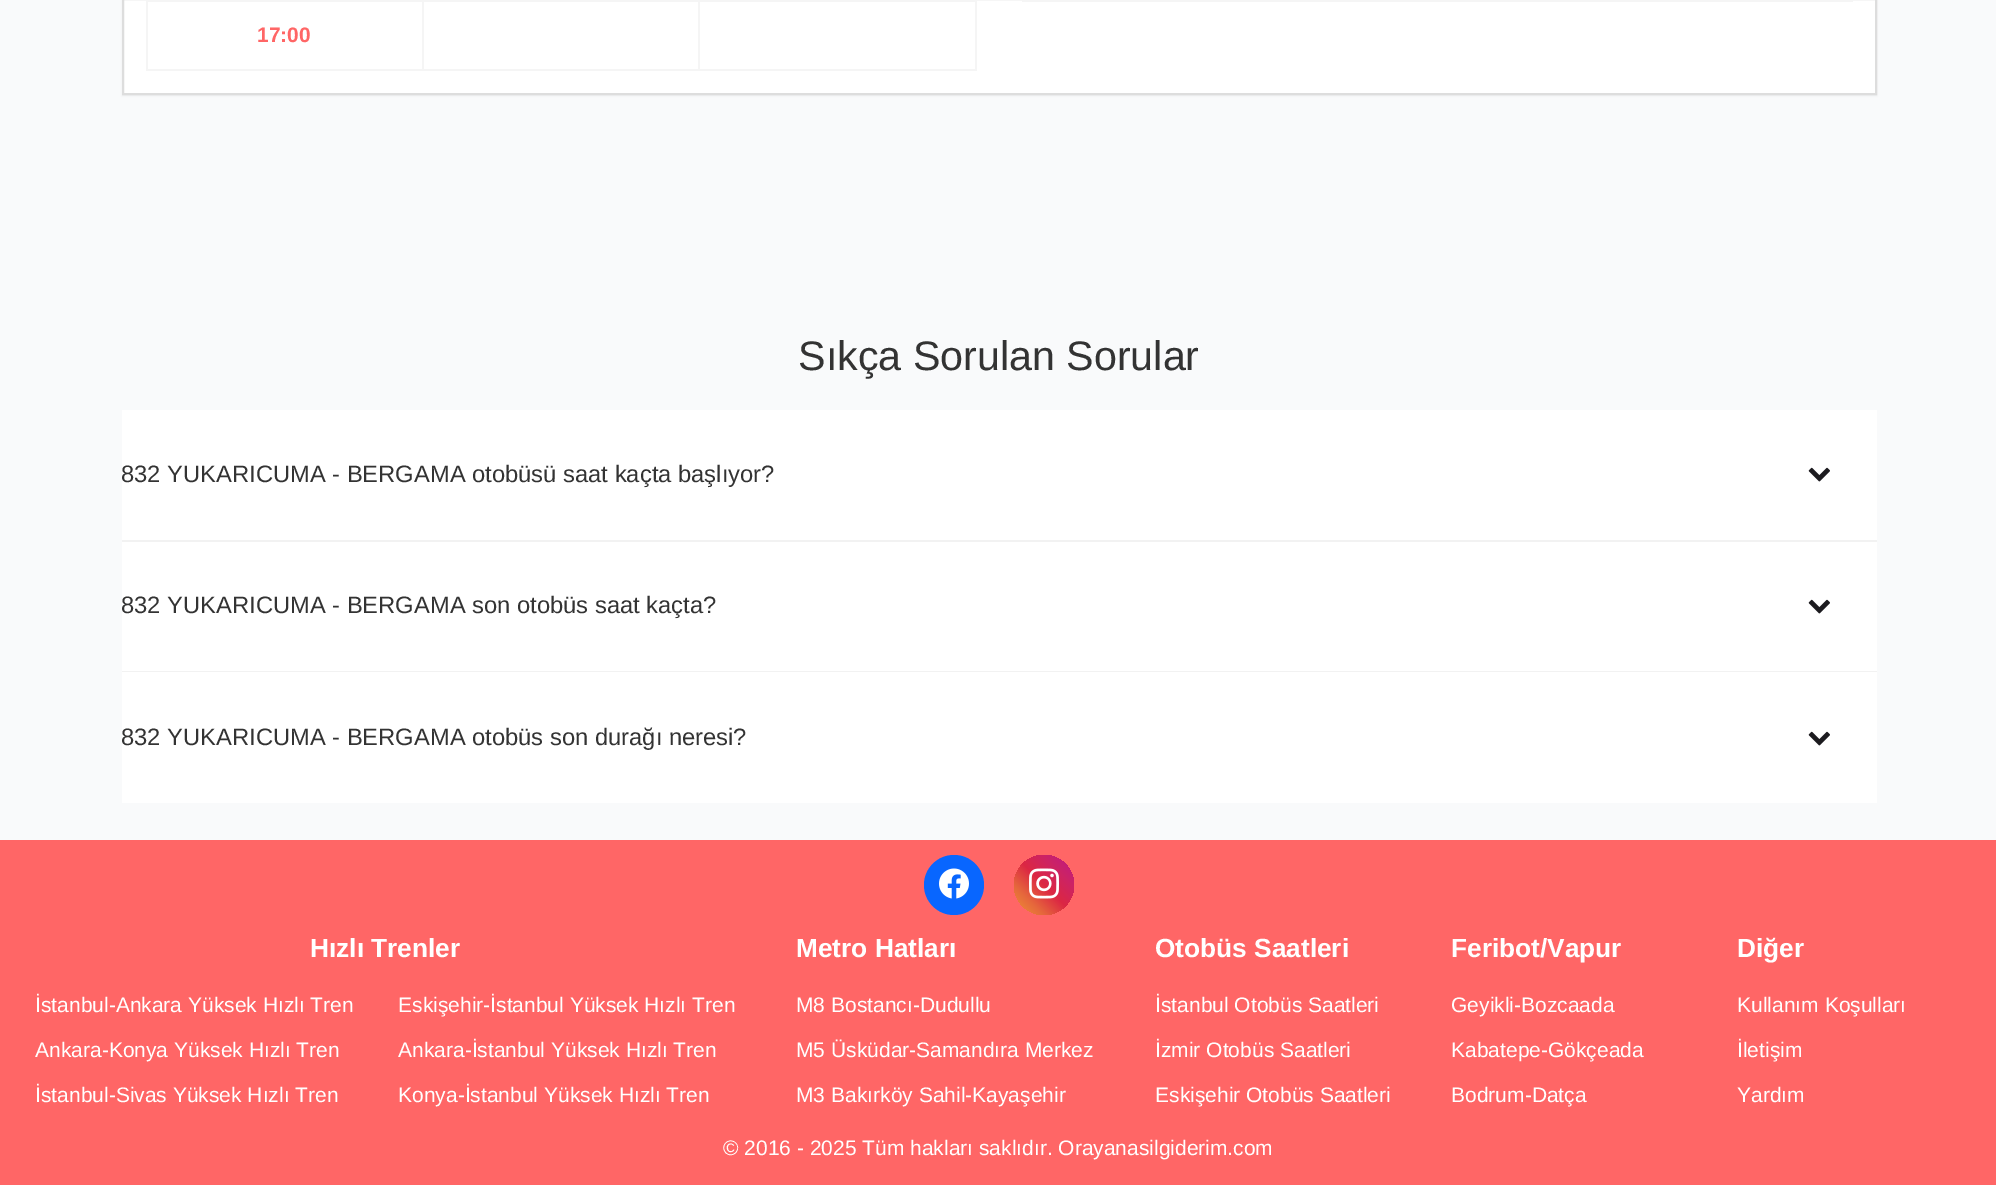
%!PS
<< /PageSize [1996 1185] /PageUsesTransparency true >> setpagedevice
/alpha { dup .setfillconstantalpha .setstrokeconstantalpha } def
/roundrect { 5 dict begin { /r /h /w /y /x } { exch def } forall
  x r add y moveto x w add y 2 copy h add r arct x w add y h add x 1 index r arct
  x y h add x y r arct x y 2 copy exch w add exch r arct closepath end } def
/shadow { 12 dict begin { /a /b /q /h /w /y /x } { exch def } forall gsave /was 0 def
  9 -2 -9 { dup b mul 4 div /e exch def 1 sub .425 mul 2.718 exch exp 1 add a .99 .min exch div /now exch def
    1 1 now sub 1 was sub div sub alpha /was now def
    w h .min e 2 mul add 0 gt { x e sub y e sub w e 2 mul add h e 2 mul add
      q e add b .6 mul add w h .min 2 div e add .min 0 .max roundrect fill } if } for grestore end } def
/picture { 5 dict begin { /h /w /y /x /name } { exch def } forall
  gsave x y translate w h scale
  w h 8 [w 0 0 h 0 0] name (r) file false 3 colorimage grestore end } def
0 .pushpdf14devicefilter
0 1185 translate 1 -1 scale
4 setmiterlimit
0.976 0.98 0.984 setrgbcolor
0 0 1996 1185 rectfill
0 setgray
122 -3 1755 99 0 1 0.05 shadow
1 setgray
newpath 123 -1 moveto 1876 -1 lineto 1876 94 lineto 123 94 lineto closepath gsave fill grestore
0.867 setgray
2 setlinewidth
stroke
0.961 setgray
1022 0 831 2 rectfill
698 0 279 2 rectfill
975 0 2 71 rectfill
698 69 279 2 rectfill
698 0 2 71 rectfill
422 0 277 2 rectfill
422 69 277 2 rectfill
422 0 2 71 rectfill
146 0 277 2 rectfill
146 69 277 2 rectfill
146 0 2 71 rectfill
/LiberationSans-Bold [21 0 0 -21 0 0] selectfont
1 0.4 0.4 setrgbcolor
257 42 moveto (17:00) show
/LiberationSans-Regular [41.25 0 0 -41.25 0 0] selectfont
0.2 setgray
798 370 moveto (Sıkça Sorulan Sorular) show
1 setgray
122 410 1755 130 rectfill
0.949 setgray
122 540 1755 2 rectfill
/LiberationSans-Regular [23.75 0 0 -23.75 0 0] selectfont
0.2 setgray
121 482 moveto (832 YUKARICUMA - BERGAMA otobüsü saat kaçta başlıyor?) show
(img1.rgb) 1808 467 22 15 picture
1 setgray
122 542 1755 129 rectfill
0.949 setgray
122 671 1755 1 rectfill
0.2 setgray
121 613 moveto (832 YUKARICUMA - BERGAMA son otobüs saat kaçta?) show
(img1.rgb) 1808 599 22 15 picture
1 setgray
122 672 1755 131 rectfill
0.2 setgray
121 745 moveto (832 YUKARICUMA - BERGAMA otobüs son durağı neresi?) show
(img1.rgb) 1808 731 22 15 picture
1 0.4 0.4 setrgbcolor
0 840 1996 345 rectfill
0.031 0.4 1 setrgbcolor
newpath 954 885 30 0 360 arc closepath fill
(img2.rgb) 939 868 30 31 picture
gsave newpath 1044 885 30 0 360 arc closepath clip newpath
<< /ShadingType 2 /ColorSpace /DeviceRGB /Coords [1014 915 1074 855] /Extend [true true] /Function << /FunctionType 3 /Domain [0 1] /Functions [<< /FunctionType 2 /Domain [0 1] /C0 [0.941 0.58 0.2] /C1 [0.902 0.408 0.235] /N 1 >> << /FunctionType 2 /Domain [0 1] /C0 [0.902 0.408 0.235] /C1 [0.863 0.153 0.263] /N 1 >> << /FunctionType 2 /Domain [0 1] /C0 [0.863 0.153 0.263] /C1 [0.8 0.137 0.4] /N 1 >> << /FunctionType 2 /Domain [0 1] /C0 [0.8 0.137 0.4] /C1 [0.737 0.094 0.533] /N 1 >>] /Bounds [0.25 0.5 0.75] /Encode [0 1 0 1 0 1 0 1] >> >> shfill grestore
(img3.rgb) 1029 868 30 31 picture
/LiberationSans-Bold [26.25 0 0 -26.25 0 0] selectfont
1 setgray
310 957 moveto (Hızlı Trenler) show
/LiberationSans-Regular [21 0 0 -21 0 0] selectfont
35 1012 moveto (İstanbul-Ankara Yüksek Hızlı Tren) show
35 1057 moveto (Ankara-Konya Yüksek Hızlı Tren) show
35 1102 moveto (İstanbul-Sivas Yüksek Hızlı Tren) show
398 1012 moveto (Eskişehir-İstanbul Yüksek Hızlı Tren) show
398 1057 moveto (Ankara-İstanbul Yüksek Hızlı Tren) show
398 1102 moveto (Konya-İstanbul Yüksek Hızlı Tren) show
/LiberationSans-Bold [26.25 0 0 -26.25 0 0] selectfont
796 957 moveto (Metro Hatları) show
/LiberationSans-Regular [21 0 0 -21 0 0] selectfont
796 1012 moveto (M8 Bostancı-Dudullu) show
796 1057 moveto (M5 Üsküdar-Samandıra Merkez) show
796 1102 moveto (M3 Bakırköy Sahil-Kayaşehir) show
/LiberationSans-Bold [26.25 0 0 -26.25 0 0] selectfont
1155 957 moveto (Otobüs Saatleri) show
/LiberationSans-Regular [21 0 0 -21 0 0] selectfont
1155 1012 moveto (İstanbul Otobüs Saatleri) show
1155 1057 moveto (İzmir Otobüs Saatleri) show
1155 1102 moveto (Eskişehir Otobüs Saatleri) show
/LiberationSans-Bold [26.25 0 0 -26.25 0 0] selectfont
1451 957 moveto (Feribot/Vapur) show
/LiberationSans-Regular [21 0 0 -21 0 0] selectfont
1451 1012 moveto (Geyikli-Bozcaada) show
1451 1057 moveto (Kabatepe-Gökçeada) show
1451 1102 moveto (Bodrum-Datça) show
/LiberationSans-Bold [26.25 0 0 -26.25 0 0] selectfont
1737 957 moveto (Diğer) show
/LiberationSans-Regular [21 0 0 -21 0 0] selectfont
1737 1012 moveto (Kullanım Koşulları) show
1737 1057 moveto (İletişim) show
1737 1102 moveto (Yardım) show
723 1155 moveto (© 2016 - 2025 Tüm hakları saklıdır. Orayanasilgiderim.com) show
.poppdf14devicefilter showpage
